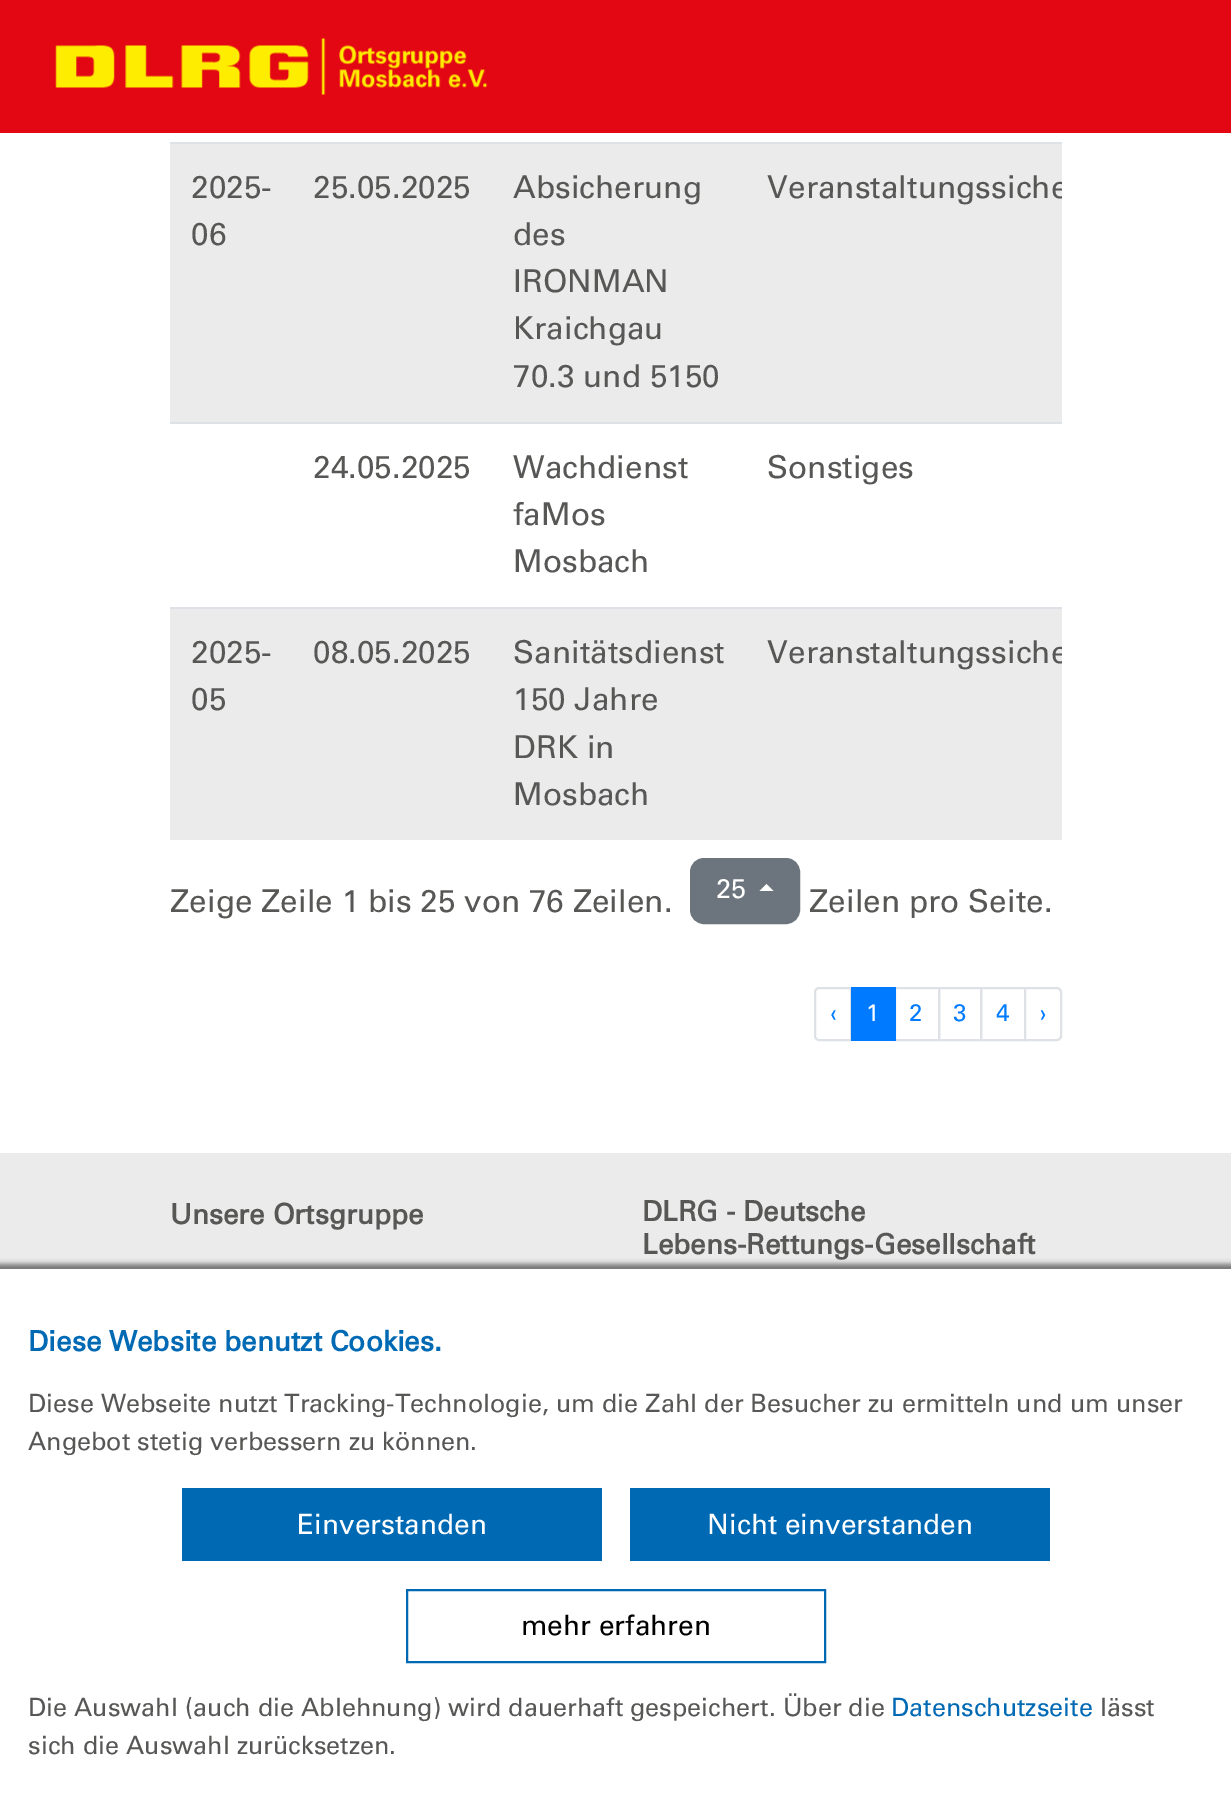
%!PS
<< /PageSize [1231 1806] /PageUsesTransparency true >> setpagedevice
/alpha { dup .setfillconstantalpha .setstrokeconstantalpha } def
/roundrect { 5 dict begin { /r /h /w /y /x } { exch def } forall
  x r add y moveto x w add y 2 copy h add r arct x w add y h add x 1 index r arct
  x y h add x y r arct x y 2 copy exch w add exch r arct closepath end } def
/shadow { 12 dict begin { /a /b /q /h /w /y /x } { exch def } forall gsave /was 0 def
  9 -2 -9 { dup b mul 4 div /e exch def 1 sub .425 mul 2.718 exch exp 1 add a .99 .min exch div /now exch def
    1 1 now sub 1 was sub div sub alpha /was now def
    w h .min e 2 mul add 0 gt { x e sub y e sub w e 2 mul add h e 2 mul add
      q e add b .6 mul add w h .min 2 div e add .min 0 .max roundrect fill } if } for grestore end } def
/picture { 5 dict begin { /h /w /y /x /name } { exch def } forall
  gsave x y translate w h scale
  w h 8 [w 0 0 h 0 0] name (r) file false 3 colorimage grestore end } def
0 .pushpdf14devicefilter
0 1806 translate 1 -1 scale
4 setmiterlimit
1 setgray
0 0 1231 1806 rectfill
0.89 0.024 0.075 setrgbcolor
0 0 1231 133 rectfill
(img1.rgb) 55 38 433 57 picture
0.922 setgray
170 144 892 278 rectfill
/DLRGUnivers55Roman-Regular [31.5 0 0 -31.5 0 0] selectfont
0.341 0.341 0.337 setrgbcolor
191 198 moveto (2025-) show
191 245 moveto (06) show
313 198 moveto (25.05.2025) show
513 198 moveto (Absicherung) show
513 245 moveto (des) show
513 292 moveto (IRONMAN) show
513 339 moveto (Kraichgau) show
513 387 moveto (70.3 und 5150) show
0.871 0.886 0.902 setrgbcolor
170 142 892 2 rectfill
gsave
170 0 892 840 rectclip
0.341 0.341 0.337 setrgbcolor
767 198 moveto (Veranstaltungssiche) show
grestore
0.341 0.341 0.337 setrgbcolor
313 478 moveto (24.05.2025) show
513 478 moveto (Wachdienst) show
513 525 moveto (faMos) show
513 572 moveto (Mosbach) show
0.871 0.886 0.902 setrgbcolor
170 422 892 2 rectfill
0.341 0.341 0.337 setrgbcolor
767 478 moveto (Sonstiges) show
0.922 setgray
170 609 892 231 rectfill
0.341 0.341 0.337 setrgbcolor
191 663 moveto (2025-) show
191 710 moveto (05) show
313 663 moveto (08.05.2025) show
513 663 moveto (Sanitätsdienst) show
513 710 moveto (150 Jahre) show
513 758 moveto (DRK in) show
513 805 moveto (Mosbach) show
0.871 0.886 0.902 setrgbcolor
170 607 892 2 rectfill
gsave
170 0 892 840 rectclip
0.341 0.341 0.337 setrgbcolor
767 663 moveto (Veranstaltungssiche) show
grestore
0.341 0.341 0.337 setrgbcolor
170 912 moveto (Zeige Zeile 1 bis 25 von 76 Zeilen.) show
0.424 0.459 0.49 setrgbcolor
691 859 108 64 13 roundrect gsave fill grestore
2 setlinewidth
stroke
/DLRGUnivers55Roman-Regular [27 0 0 -27 0 0] selectfont
1 setgray
716 898 moveto (25) show
newpath 773.5 891 moveto 759.5 891 lineto 766.5 884 lineto closepath fill
/DLRGUnivers55Roman-Regular [31.5 0 0 -31.5 0 0] selectfont
0.341 0.341 0.337 setrgbcolor
809 912 moveto (Zeilen pro Seite.) show
0.871 0.886 0.902 setrgbcolor
newpath 819 988 moveto 851 988 lineto 851 1040 lineto 819 1040 lineto 817 1040 815 1038 815 1036 curveto 815 992 lineto 815 990 817 988 819 988 curveto closepath stroke
/DLRGUnivers55Roman-Regular [24 0 0 -24 0 0] selectfont
0 0.482 1 setrgbcolor
830 1021 moveto (‹) show
0.871 0.886 0.902 setrgbcolor
895 988 44 52 rectstroke
0 0.482 1 setrgbcolor
851 987 45 54 rectfill
1 setgray
866 1021 moveto (1) show
0 0.482 1 setrgbcolor
909 1021 moveto (2) show
0.871 0.886 0.902 setrgbcolor
939 988 42 52 rectstroke
0 0.482 1 setrgbcolor
953 1021 moveto (3) show
0.871 0.886 0.902 setrgbcolor
981 988 44 52 rectstroke
0 0.482 1 setrgbcolor
996 1021 moveto (4) show
1 setgray
newpath 1025 988 moveto 1057 988 lineto 1059 988 1061 990 1061 992 curveto 1061 1036 lineto 1061 1038 1059 1040 1057 1040 curveto 1025 1040 lineto closepath gsave fill grestore
0.871 0.886 0.902 setrgbcolor
stroke
0 0.482 1 setrgbcolor
1040 1021 moveto (›) show
0.922 setgray
0 1153 1231 116 rectfill
/DLRGUnivers55Roman-Bold [28 0 0 -28 0 0] selectfont
0.341 0.341 0.337 setrgbcolor
170 1224 moveto (Unsere Ortsgruppe) show
642 1221 moveto (DLRG - Deutsche) show
642 1254 moveto (Lebens-Rettungs-Gesellschaft) show
0 setgray
-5 1264 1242 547 0 2.5 0.5 shadow
1 setgray
0 1269 1231 537 rectfill
0 0.412 0.706 setrgbcolor
28 1351 moveto (Diese Website benutzt Cookies.) show
/DLRGUnivers55Roman-Regular [25.2 0 0 -25.2 0 0] selectfont
0.341 0.341 0.337 setrgbcolor
28 1412 moveto (Diese Webseite nutzt Tracking-Technologie, um die Zahl der Besucher zu ermitteln und um unser) show
28 1450 moveto (Angebot stetig verbessern zu können.) show
0 0.412 0.706 setrgbcolor
182 1488 420 73 rectfill
/DLRGUnivers55Roman-Regular [28 0 0 -28 0 0] selectfont
1 setgray
297 1534 moveto (Einverstanden) show
0 0.412 0.706 setrgbcolor
630 1488 420 73 rectfill
1 setgray
707 1534 moveto (Nicht einverstanden) show
0 0.412 0.706 setrgbcolor
407 1590 418 72 rectstroke
0 setgray
521 1635 moveto (mehr erfahren) show
/DLRGUnivers55Roman-Regular [25.2 0 0 -25.2 0 0] selectfont
0.341 0.341 0.337 setrgbcolor
28 1716 moveto (Die Auswahl \(auch die Ablehnung\) wird dauerhaft gespeichert. Über die) show
0 0.412 0.706 setrgbcolor
891 1716 moveto (Datenschutzseite) show
0.341 0.341 0.337 setrgbcolor
1100 1716 moveto (lässt) show
28 1754 moveto (sich die Auswahl zurücksetzen.) show
.poppdf14devicefilter showpage
